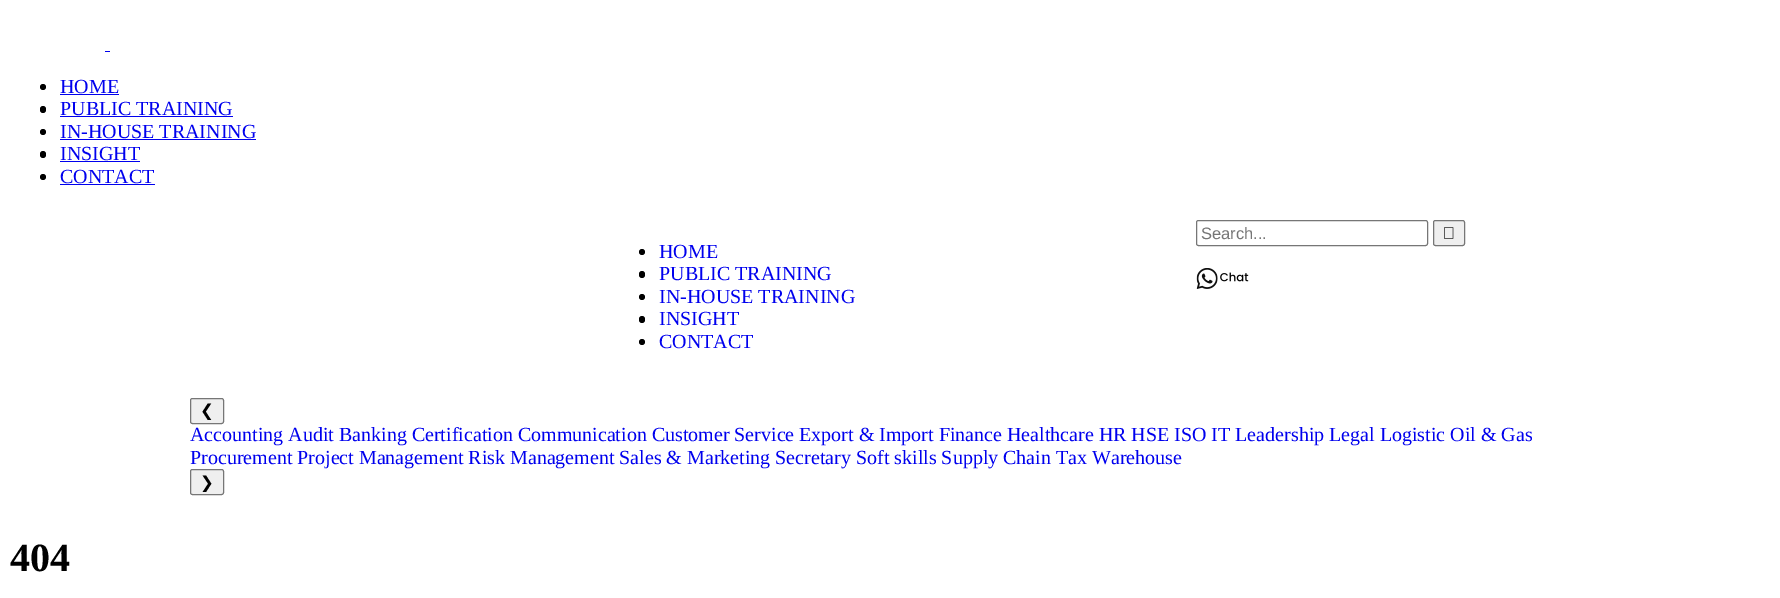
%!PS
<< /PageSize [1780 598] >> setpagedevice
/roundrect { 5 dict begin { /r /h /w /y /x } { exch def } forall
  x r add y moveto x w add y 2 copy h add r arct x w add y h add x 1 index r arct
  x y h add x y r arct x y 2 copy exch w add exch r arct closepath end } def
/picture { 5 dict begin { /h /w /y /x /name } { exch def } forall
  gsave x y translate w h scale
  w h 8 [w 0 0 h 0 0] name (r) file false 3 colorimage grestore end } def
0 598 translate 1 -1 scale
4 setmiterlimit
1 setgray
0 0 1780 598 rectfill
0 0 0.933 setrgbcolor
105 51 5 1 rectfill
0 setgray
newpath 43 87 3 0 360 arc closepath fill
/LiberationSerif-Regular [20 0 0 -20 0 0] selectfont
0 0 0.933 setrgbcolor
60 93 moveto (HOME) show
60 94 59 1 rectfill
0 setgray
40 106 6 7 3 roundrect fill
0 0 0.933 setrgbcolor
60 115 moveto (PUBLIC TRAINING) show
60 116 173 1 rectfill
0 setgray
newpath 43 132 3 0 360 arc closepath fill
0 0 0.933 setrgbcolor
60 138 moveto (IN-HOUSE TRAINING) show
60 139 196 1 rectfill
0 setgray
40 151 6 7 3 roundrect fill
0 0 0.933 setrgbcolor
60 160 moveto (INSIGHT) show
60 161 80 1 rectfill
0 setgray
newpath 43 177 3 0 360 arc closepath fill
0 0 0.933 setrgbcolor
60 183 moveto (CONTACT) show
60 184 95 1 rectfill
0.463 setgray
1196.5 220.5 231 25 2 roundrect stroke
/LiberationSans-Regular [16.5 0 0 -16.5 0 0] selectfont
0.459 setgray
1201 239 moveto (Search...) show
0.937 setgray
1433.5 220.5 31 25 2 roundrect gsave fill grestore
0.463 setgray
stroke
(img1.rgb) 1444 227 10 12 picture
(img2.rgb) 1196 268 53 21 picture
0 setgray
newpath 642 252 3 0 360 arc closepath fill
/LiberationSerif-Regular [20 0 0 -20 0 0] selectfont
0 0 0.933 setrgbcolor
659 258 moveto (HOME) show
0 setgray
639 271 6 7 3 roundrect fill
0 0 0.933 setrgbcolor
659 280 moveto (PUBLIC TRAINING) show
0 setgray
newpath 642 297 3 0 360 arc closepath fill
0 0 0.933 setrgbcolor
659 303 moveto (IN-HOUSE TRAINING) show
0 setgray
639 316 6 7 3 roundrect fill
0 0 0.933 setrgbcolor
659 325 moveto (INSIGHT) show
0 setgray
newpath 642 342 3 0 360 arc closepath fill
0 0 0.933 setrgbcolor
659 348 moveto (CONTACT) show
0.937 setgray
190.5 398.5 33 25 2 roundrect gsave fill grestore
0.463 setgray
stroke
/DejaVuSans-Regular [16.5 0 0 -16.5 0 0] selectfont
0 setgray
200 416 moveto (❮) show
/LiberationSerif-Regular [20 0 0 -20 0 0] selectfont
0 0 0.933 setrgbcolor
190 441 moveto (Accounting Audit Banking Certification Communication Customer Service Export & Import Finance Healthcare HR HSE ISO IT Leadership Legal Logistic Oil & Gas) show
190 464 moveto (Procurement Project Management Risk Management Sales & Marketing Secretary Soft skills Supply Chain Tax Warehouse) show
0.937 setgray
190.5 469.5 33 25 2 roundrect gsave fill grestore
0.463 setgray
stroke
/DejaVuSans-Regular [16.5 0 0 -16.5 0 0] selectfont
0 setgray
200 488 moveto (❯) show
/LiberationSerif-Bold [40 0 0 -40 0 0] selectfont
10 571 moveto (404) show
showpage
